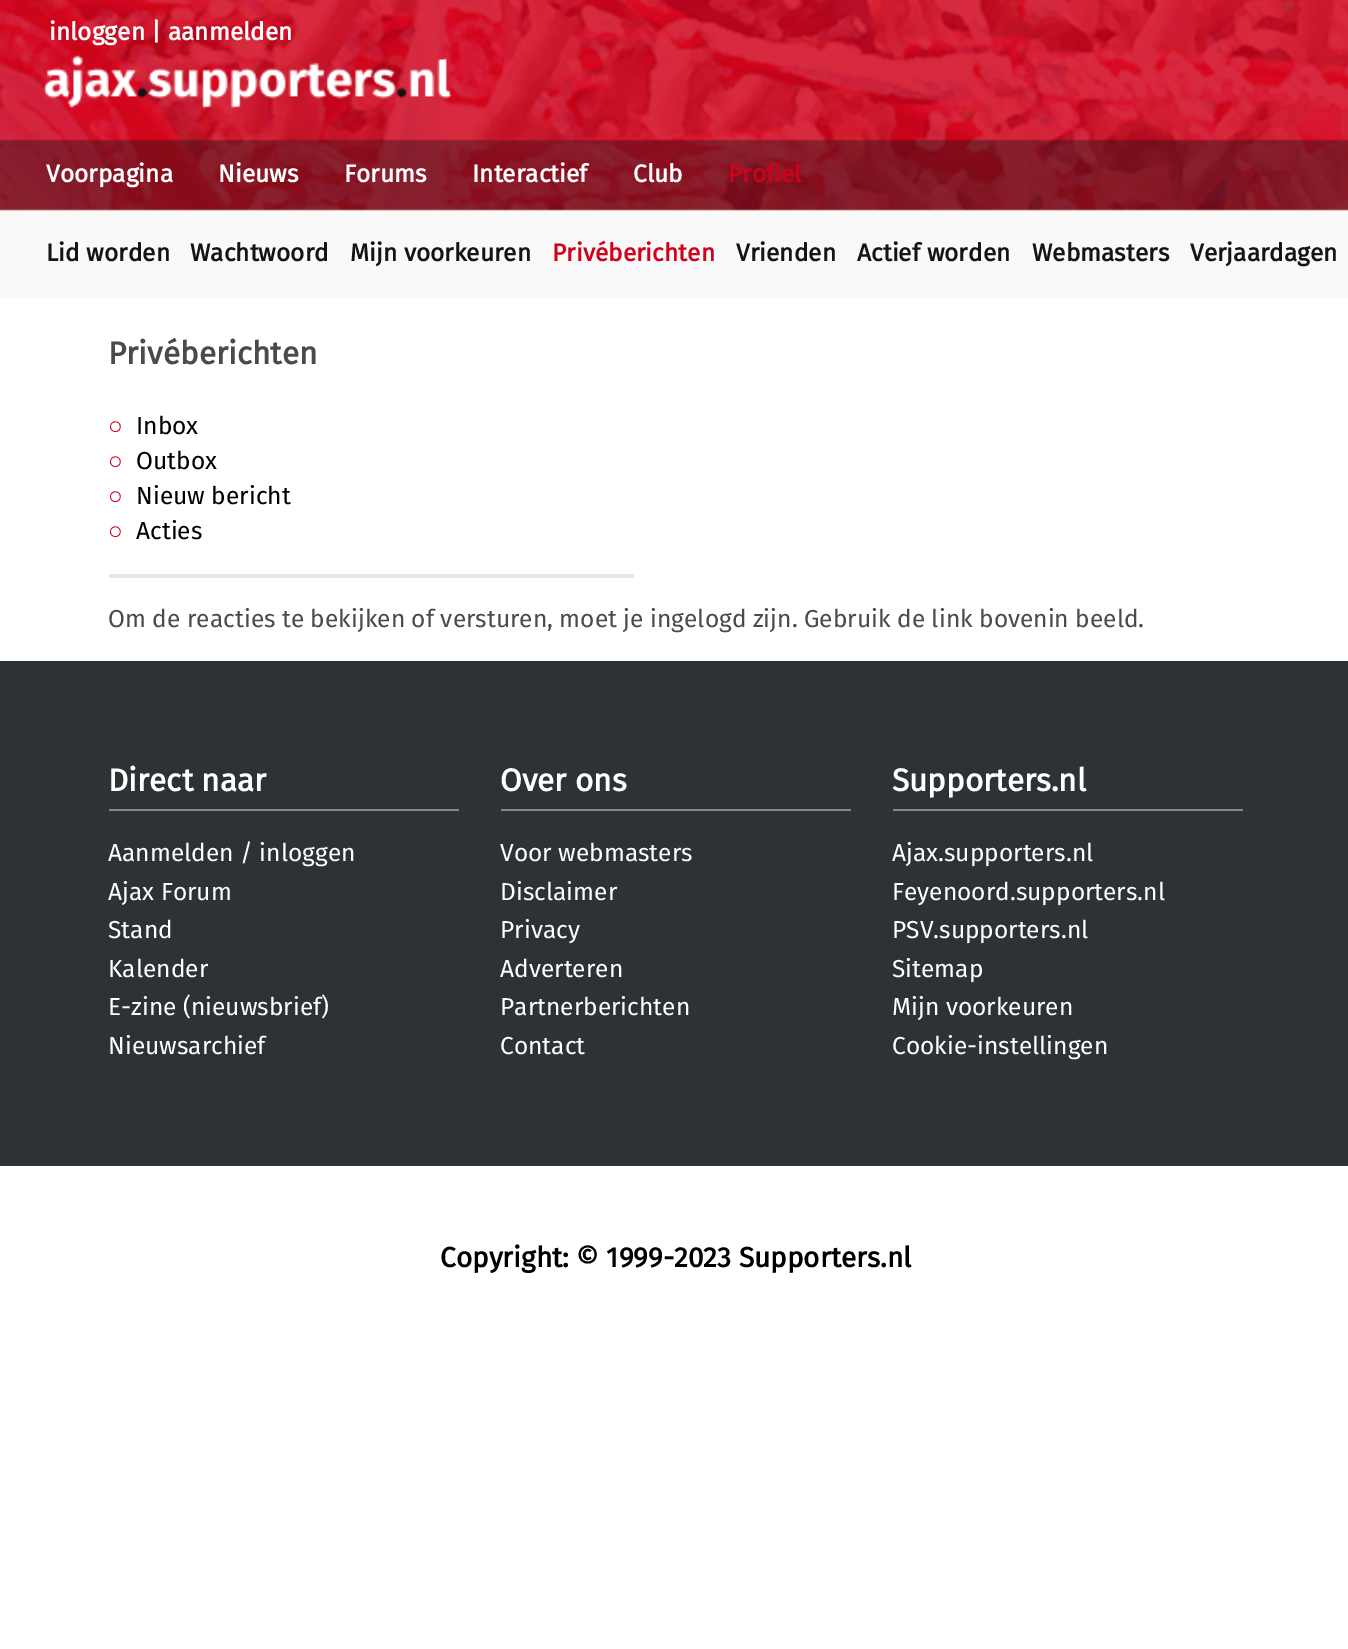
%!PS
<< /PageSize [1348 1649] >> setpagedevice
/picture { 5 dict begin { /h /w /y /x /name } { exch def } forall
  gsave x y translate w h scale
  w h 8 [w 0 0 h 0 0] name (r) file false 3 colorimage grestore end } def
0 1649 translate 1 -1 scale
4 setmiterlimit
1 setgray
0 0 1348 1649 rectfill
(img1.rgb) 0 211 1348 86 picture
(img2.rgb) 0 0 1348 211 picture
/FiraSans-Bold [24.5 0 0 -24.5 0 0] selectfont
49 40 moveto (inloggen | aanmelden) show
46 182 moveto (Voorpagina) show
218 182 moveto (Nieuws) show
344 182 moveto (Forums) show
472 182 moveto (Interactief) show
633 182 moveto (Club) show
0.816 0.008 0.106 setrgbcolor
728 182 moveto (Profiel) show
0.078 setgray
46 261 moveto (Lid worden) show
190 261 moveto (Wachtwoord) show
350 261 moveto (Mijn voorkeuren) show
0.816 0.008 0.106 setrgbcolor
552 261 moveto (Privéberichten) show
0.078 setgray
736 261 moveto (Vrienden) show
857 261 moveto (Actief worden) show
1032 261 moveto (Webmasters) show
1190 261 moveto (Verjaardagen) show
/FiraSans-Bold [31.5 0 0 -31.5 0 0] selectfont
0.29 setgray
108 364 moveto (Privéberichten) show
/LiberationSans-Regular [24.5 0 0 -24.5 0 0] selectfont
0.816 0.008 0.106 setrgbcolor
108 434 moveto (○) show
/FiraSans-Regular [24.5 0 0 -24.5 0 0] selectfont
0 setgray
136 434 moveto (Inbox) show
/LiberationSans-Regular [24.5 0 0 -24.5 0 0] selectfont
0.816 0.008 0.106 setrgbcolor
108 469 moveto (○) show
/FiraSans-Regular [24.5 0 0 -24.5 0 0] selectfont
0 setgray
136 469 moveto (Outbox) show
/LiberationSans-Regular [24.5 0 0 -24.5 0 0] selectfont
0.816 0.008 0.106 setrgbcolor
108 504 moveto (○) show
/FiraSans-Regular [24.5 0 0 -24.5 0 0] selectfont
0 setgray
136 504 moveto (Nieuw bericht) show
/LiberationSans-Regular [24.5 0 0 -24.5 0 0] selectfont
0.816 0.008 0.106 setrgbcolor
108 539 moveto (○) show
/FiraSans-Regular [24.5 0 0 -24.5 0 0] selectfont
0 setgray
136 539 moveto (Acties) show
0.902 setgray
109 574 525 4 rectfill
0.29 setgray
108 627 moveto (Om de reacties te bekijken of versturen, moet je ingelogd zijn. Gebruik de link bovenin beeld.) show
0.176 0.196 0.208 setrgbcolor
0 661 1348 505 rectfill
/FiraSans-Bold [31.5 0 0 -31.5 0 0] selectfont
1 setgray
108 791 moveto (Direct naar) show
0.533 setgray
109 809 350 2 rectfill
/FiraSans-Regular [24.5 0 0 -24.5 0 0] selectfont
1 setgray
108 861 moveto (Aanmelden / inloggen) show
108 900 moveto (Ajax Forum) show
108 938 moveto (Stand) show
108 977 moveto (Kalender) show
108 1015 moveto (E-zine \(nieuwsbrief\)) show
108 1054 moveto (Nieuwsarchief) show
/FiraSans-Bold [31.5 0 0 -31.5 0 0] selectfont
500 791 moveto (Over ons) show
0.533 setgray
501 809 350 2 rectfill
/FiraSans-Regular [24.5 0 0 -24.5 0 0] selectfont
1 setgray
500 861 moveto (Voor webmasters) show
500 900 moveto (Disclaimer) show
500 938 moveto (Privacy) show
500 977 moveto (Adverteren) show
500 1015 moveto (Partnerberichten) show
500 1054 moveto (Contact) show
/FiraSans-Bold [31.5 0 0 -31.5 0 0] selectfont
892 791 moveto (Supporters.nl) show
0.533 setgray
893 809 350 2 rectfill
/FiraSans-Regular [24.5 0 0 -24.5 0 0] selectfont
1 setgray
892 861 moveto (Ajax.supporters.nl) show
892 900 moveto (Feyenoord.supporters.nl) show
892 938 moveto (PSV.supporters.nl) show
892 977 moveto (Sitemap) show
892 1015 moveto (Mijn voorkeuren) show
892 1054 moveto (Cookie-instellingen) show
/FiraSans-Bold [28 0 0 -28 0 0] selectfont
0 setgray
440 1267 moveto (Copyright: © 1999-2023 Supporters.nl) show
showpage
